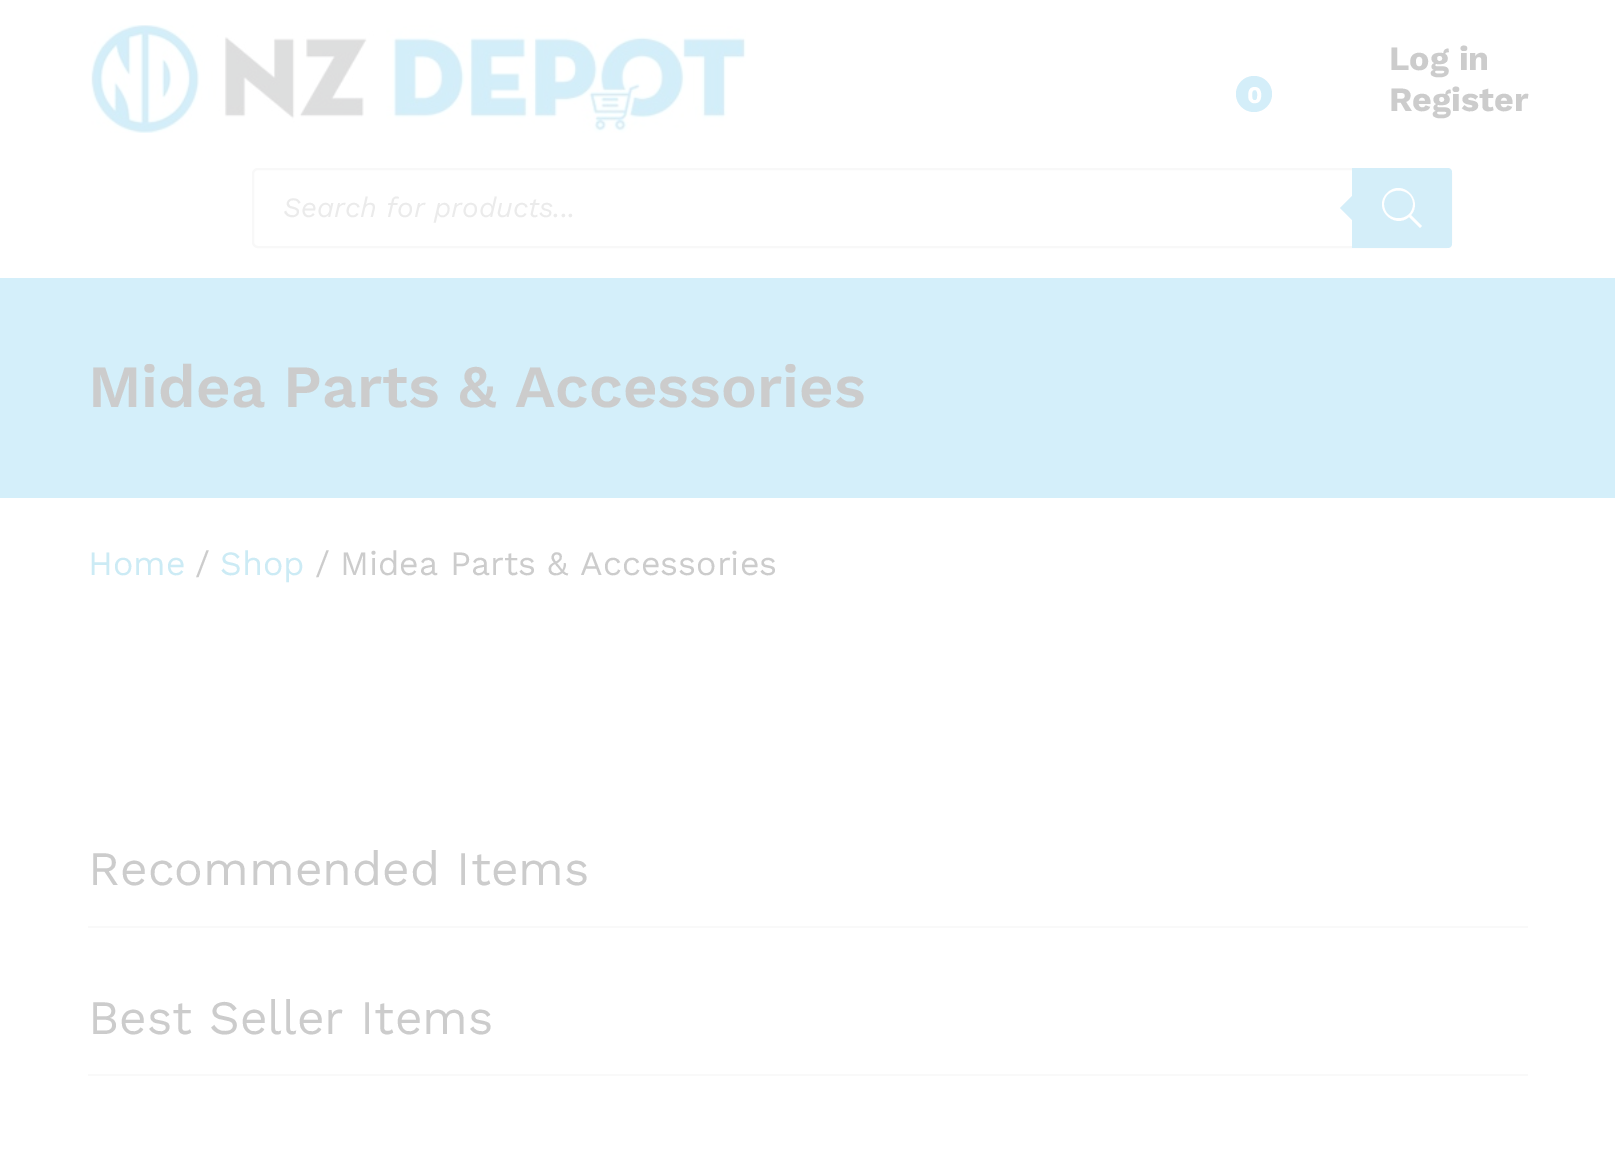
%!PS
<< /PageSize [1615 1151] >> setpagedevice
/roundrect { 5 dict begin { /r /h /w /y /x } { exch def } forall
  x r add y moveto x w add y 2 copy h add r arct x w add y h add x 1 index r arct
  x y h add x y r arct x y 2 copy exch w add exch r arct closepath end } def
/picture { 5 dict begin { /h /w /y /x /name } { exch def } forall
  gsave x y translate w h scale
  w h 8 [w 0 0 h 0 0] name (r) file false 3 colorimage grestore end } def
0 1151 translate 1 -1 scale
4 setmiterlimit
1 setgray
0 0 1615 1151 rectfill
(img1.rgb) 91 25 655 108 picture
0.831 0.933 0.976 setrgbcolor
newpath 1254 94 18 0 360 arc closepath fill
/WorkSans-Bold [24 0 0 -24 0 0] selectfont
1 setgray
1247 103 moveto (0) show
/WorkSans-Bold [34 0 0 -34 0 0] selectfont
0.8 setgray
1389 70 moveto (Log in) show
1389 111 moveto (Register) show
0.973 setgray
2 setlinewidth
253 169 1198 78 5 roundrect stroke
/WorkSans-Italic [28 0 0 -28 0 0] selectfont
0.922 setgray
283 217 moveto (Search for products...) show
0.831 0.933 0.976 setrgbcolor
newpath 1352 168 moveto 1448 168 lineto 1450 168 1452 170 1452 172 curveto 1452 244 lineto 1452 246 1450 248 1448 248 curveto 1352 248 lineto closepath fill
newpath 1356 192 moveto 1356 224 lineto 1340 208 lineto closepath fill
1 setgray
newpath 1422 226 moveto 1411 215 lineto 1424 200 1402 178 1387 193 curveto 1372 208 1394 230 1409 217 curveto 1420 228 lineto closepath 1384 204 moveto 1384 186 1413 186 1413 204 curveto 1413 223 1384 223 1384 204 curveto closepath fill
0.831 0.937 0.98 setrgbcolor
0 278 1615 220 rectfill
/WorkSans-SemiBold [60 0 0 -60 0 0] selectfont
0.8 setgray
88 407 moveto (Midea Parts & Accessories) show
/WorkSans-Regular [34 0 0 -34 0 0] selectfont
0.8 0.922 0.961 setrgbcolor
88 575 moveto (Home) show
0.8 setgray
195 575 moveto (/) show
0.8 0.922 0.961 setrgbcolor
220 575 moveto (Shop) show
0.8 setgray
315 575 moveto (/) show
340 575 moveto (Midea Parts & Accessories) show
0.976 setgray
88 926 1440 2 rectfill
/WorkSans-Regular [48 0 0 -48 0 0] selectfont
0.8 setgray
88 885 moveto (Recommended Items) show
0.976 setgray
88 1074 1440 2 rectfill
0.8 setgray
88 1034 moveto (Best Seller Items) show
showpage
